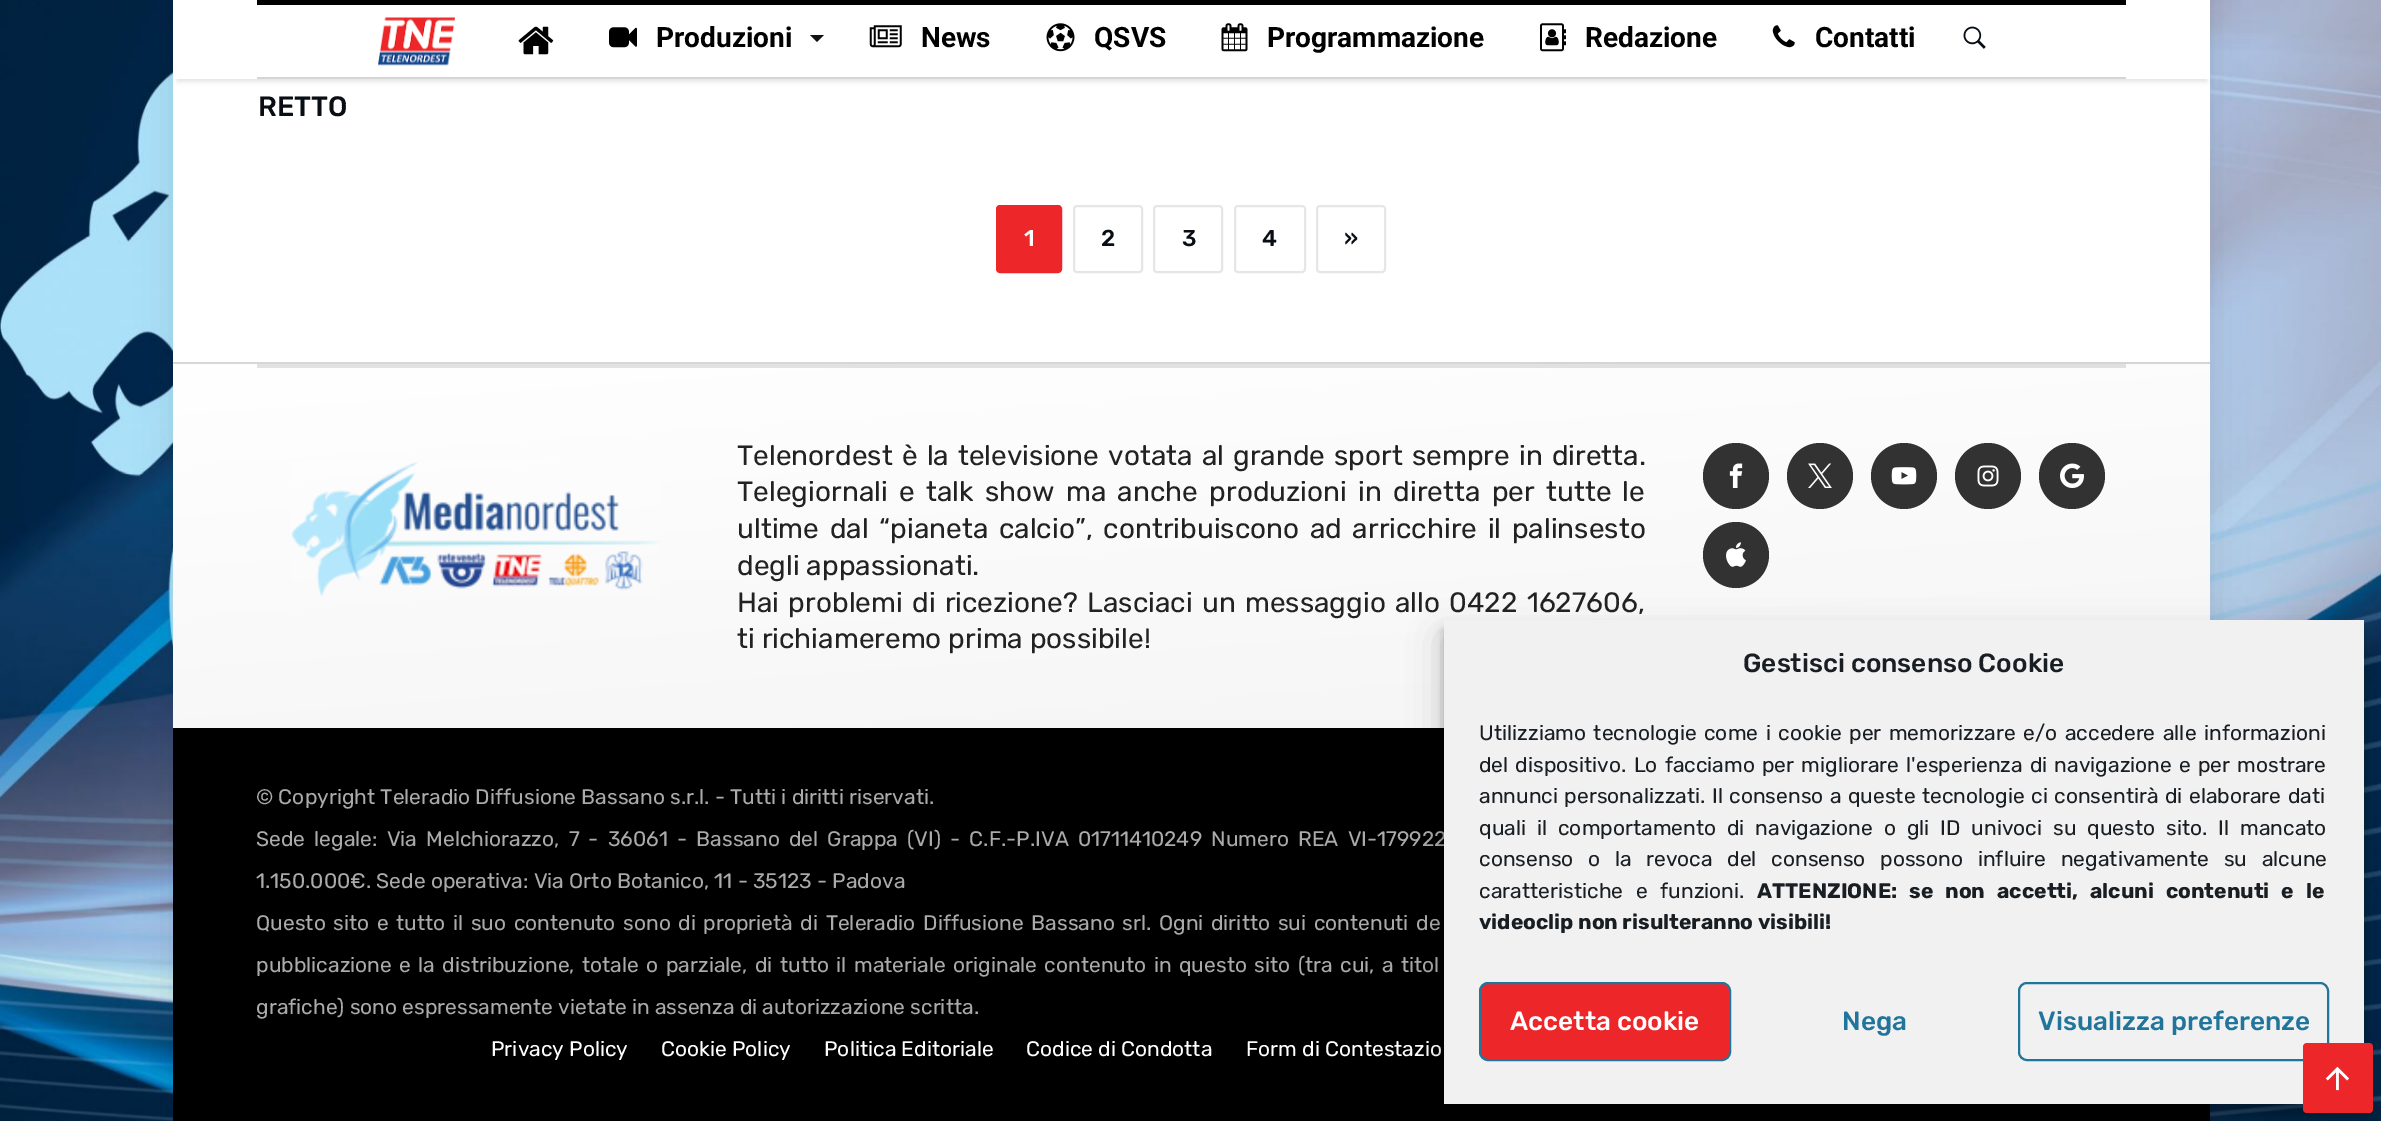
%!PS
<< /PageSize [2381 1121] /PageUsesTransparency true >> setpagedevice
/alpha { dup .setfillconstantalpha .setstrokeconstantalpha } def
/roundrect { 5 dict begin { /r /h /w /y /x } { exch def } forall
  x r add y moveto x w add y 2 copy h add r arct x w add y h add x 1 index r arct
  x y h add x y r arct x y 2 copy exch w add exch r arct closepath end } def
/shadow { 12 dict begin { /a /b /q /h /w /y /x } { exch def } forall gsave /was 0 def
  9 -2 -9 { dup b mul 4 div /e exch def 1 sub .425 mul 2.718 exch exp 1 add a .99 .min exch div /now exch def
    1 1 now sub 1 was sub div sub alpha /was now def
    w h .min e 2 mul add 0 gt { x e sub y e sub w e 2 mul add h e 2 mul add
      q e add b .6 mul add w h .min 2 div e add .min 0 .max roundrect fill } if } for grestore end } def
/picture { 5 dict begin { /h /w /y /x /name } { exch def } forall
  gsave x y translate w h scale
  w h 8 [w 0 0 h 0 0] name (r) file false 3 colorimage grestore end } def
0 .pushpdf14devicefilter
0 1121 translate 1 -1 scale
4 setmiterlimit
1 setgray
0 0 2381 1121 rectfill
(img1.rgb) 0 0 2381 1121 picture
0 setgray
173 -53 2037 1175 0 17.5 0.1 shadow
1 setgray
173 0 2037 362 rectfill
gsave
newpath 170 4 moveto 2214 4 lineto 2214 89 lineto 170 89 lineto closepath 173 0 moveto 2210 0 lineto 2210 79 lineto 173 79 lineto closepath eoclip newpath
0 setgray
177 11 2030 71 0 2 0.1 shadow
grestore
0.95 alpha
177 78 2030 1 rectfill
1 alpha
0 setgray
257 0 1869 5 rectfill
0.835 setgray
257 77 1869 2 rectfill
(img2.rgb) 378 17 77 49 picture
(img3.rgb) 518 26 36 29 picture
(img4.rgb) 609 27 28 21 picture
/Roboto-Bold [28 0 0 -28 0 0] selectfont
0 setgray
656 47 moveto (Produzioni) show
0.067 setgray
newpath 810 35 moveto 824 35 lineto 817 42 lineto closepath fill
(img5.rgb) 869 25 33 23 picture
0 setgray
921 47 moveto (News) show
(img6.rgb) 1046 23 29 29 picture
1094 47 moveto (QSVS) show
(img7.rgb) 1221 23 27 29 picture
1267 47 moveto (Programmazione) show
(img8.rgb) 1540 23 26 29 picture
1585 47 moveto (Redazione) show
(img9.rgb) 1772 25 23 23 picture
1815 47 moveto (Contatti) show
(img10.rgb) 1963 26 23 23 picture
/Rubik-Medium [28 0 0 -28 0 0] selectfont
0.031 0.055 0.078 setrgbcolor
258 116 moveto (RETTO) show
0.929 0.153 0.161 setrgbcolor
997 206 64 66 3 roundrect gsave fill grestore
2 setlinewidth
stroke
/Rubik-Medium [23 0 0 -23 0 0] selectfont
1 setgray
1024 246 moveto (1) show
0.902 setgray
1074 206 68 66 3 roundrect stroke
0.031 0.055 0.078 setrgbcolor
1101 246 moveto (2) show
0.902 setgray
1154 206 68 66 3 roundrect stroke
0.031 0.055 0.078 setrgbcolor
1182 246 moveto (3) show
0.902 setgray
1235 206 70 66 3 roundrect stroke
0.031 0.055 0.078 setrgbcolor
1262 246 moveto (4) show
0.902 setgray
1317 206 68 66 3 roundrect stroke
0.031 0.055 0.078 setrgbcolor
1344 246 moveto (») show
gsave newpath 173 362 moveto 2210 362 lineto 2210 364 lineto 173 364 lineto closepath clip newpath
<< /ShadingType 2 /ColorSpace /DeviceRGB /Coords [1160 -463 1223 433] /Extend [true true] /Function << /FunctionType 2 /Domain [0 1] /C0 [1 1 1] /C1 [0.929 0.929 0.929] /N 1 >> >> shfill grestore
gsave newpath 173 364 moveto 2210 364 lineto 2210 728 lineto 173 728 lineto closepath clip newpath
<< /ShadingType 2 /ColorSpace /DeviceRGB /Coords [1160 295 1223 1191] /Extend [true true] /Function << /FunctionType 2 /Domain [0 1] /C0 [1 1 1] /C1 [0.929 0.929 0.929] /N 1 >> >> shfill grestore
0.1 alpha
0 setgray
173 362 2037 2 rectfill
0.11 alpha
257 364 1869 4 rectfill
1 alpha
(img11.rgb) 291 462 369 135 picture
/Rubik-Regular [28 0 0 -28 0 0] selectfont
0.133 setgray
737 465 moveto 2.25 0 32 (Telenordest è la televisione votata al grande sport sempre in diretta.) widthshow
737 501 moveto 4.4 0 32 (Telegiornali e talk show ma anche produzioni in diretta per tutte le) widthshow
737 538 moveto 3.75 0 32 (ultime dal “pianeta calcio”, contribuiscono ad arricchire il palinsesto) widthshow
737 575 moveto (degli appassionati.) show
737 612 moveto 2.4 0 32 (Hai problemi di ricezione? Lasciaci un messaggio allo 0422 1627606,) widthshow
737 648 moveto (ti richiameremo prima possibile!) show
0.196 setgray
newpath 1736 476 33 0 360 arc closepath fill
(img12.rgb) 1729 463 14 25 picture
newpath 1820 476 33 0 360 arc closepath fill
(img13.rgb) 1808 463 24 25 picture
newpath 1904 476 33 0 360 arc closepath fill
(img14.rgb) 1891 467 26 18 picture
newpath 1988 476 33 0 360 arc closepath fill
(img15.rgb) 1977 465 22 22 picture
newpath 2072 476 33 0 360 arc closepath fill
(img16.rgb) 2060 463 24 25 picture
newpath 1736 555 33 0 360 arc closepath fill
(img17.rgb) 1726 542 20 25 picture
0 setgray
173 728 2037 393 rectfill
/Rubik-Regular [21 0 0 -21 0 0] selectfont
0.667 setgray
256 804 moveto (© Copyright Teleradio Diffusione Bassano s.r.l. - Tutti i diritti riservati.) show
256 846 moveto 4 0 32 (Sede legale: Via Melchiorazzo, 7 - 36061 - Bassano del Grappa \(VI\) - C.F.-P.IVA 01711410249 Numero REA VI-179922) widthshow
256 888 moveto (1.150.000€. Sede operativa: Via Orto Botanico, 11 - 35123 - Padova) show
256 930 moveto 2.4 0 32 (Questo sito e tutto il suo contenuto sono di proprietà di Teleradio Diffusione Bassano srl. Ogni diritto sui contenuti de) widthshow
256 972 moveto 2.25 0 32 (pubblicazione e la distribuzione, totale o parziale, di tutto il materiale originale contenuto in questo sito \(tra cui, a titol) widthshow
256 1014 moveto (grafiche\) sono espressamente vietate in assenza di autorizzazione scritta.) show
1 setgray
491 1056 moveto (Privacy Policy) show
661 1056 moveto (Cookie Policy) show
824 1056 moveto (Politica Editoriale) show
1026 1056 moveto (Codice di Condotta) show
1246 1056 moveto (Form di Contestazio) show
0 setgray
1444 630 920 485 0 5 0.23 shadow
1444 637 920 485 0 17.5 0.19 shadow
0.945 setgray
1444 620 920 484 rectfill
/Rubik-Medium [26.25 0 0 -26.25 0 0] selectfont
0.098 0.118 0.137 setrgbcolor
1743 672 moveto (Gestisci consenso Cookie) show
/Rubik-Regular [21 0 0 -21 0 0] selectfont
1479 740 moveto 2.4 0 32 (Utilizziamo tecnologie come i cookie per memorizzare e/o accedere alle informazioni) widthshow
1479 772 moveto 2 0 32 (del dispositivo. Lo facciamo per migliorare l'esperienza di navigazione e per mostrare) widthshow
1479 803 moveto 1.25 0 32 (annunci personalizzati. Il consenso a queste tecnologie ci consentirà di elaborare dati) widthshow
1479 835 moveto 5.75 0 32 (quali il comportamento di navigazione o gli ID univoci su questo sito. Il mancato) widthshow
1479 866 moveto 9.5 0 32 (consenso o la revoca del consenso possono influire negativamente su alcune) widthshow
1479 898 moveto 7.5 0 32 (caratteristiche e funzioni.) widthshow
/Rubik-Bold [21 0 0 -21 0 0] selectfont
1757 898 moveto 7.5 0 32 (ATTENZIONE: se non accetti, alcuni contenuti e le) widthshow
1479 929 moveto (videoclip non risulteranno visibili!) show
0.929 0.153 0.161 setrgbcolor
1480 983 250 77 8 roundrect gsave fill grestore
0.129 0.459 0.608 setrgbcolor
stroke
/Rubik-Medium [26.25 0 0 -26.25 0 0] selectfont
1 setgray
1510 1030 moveto (Accetta cookie) show
0.129 0.459 0.608 setrgbcolor
1842 1030 moveto (Nega) show
2019 983 309 77 8 roundrect stroke
2038 1030 moveto (Visualizza preferenze) show
0.929 0.153 0.161 setrgbcolor
2303 1043 70 70 4 roundrect fill
(img18.rgb) 2325 1066 24 25 picture
.poppdf14devicefilter showpage
